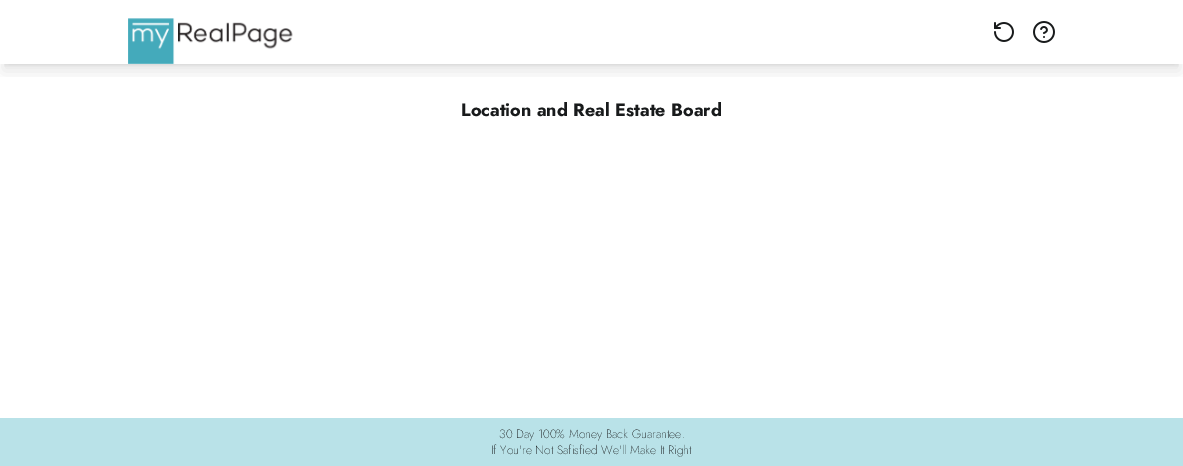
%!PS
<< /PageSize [1183 466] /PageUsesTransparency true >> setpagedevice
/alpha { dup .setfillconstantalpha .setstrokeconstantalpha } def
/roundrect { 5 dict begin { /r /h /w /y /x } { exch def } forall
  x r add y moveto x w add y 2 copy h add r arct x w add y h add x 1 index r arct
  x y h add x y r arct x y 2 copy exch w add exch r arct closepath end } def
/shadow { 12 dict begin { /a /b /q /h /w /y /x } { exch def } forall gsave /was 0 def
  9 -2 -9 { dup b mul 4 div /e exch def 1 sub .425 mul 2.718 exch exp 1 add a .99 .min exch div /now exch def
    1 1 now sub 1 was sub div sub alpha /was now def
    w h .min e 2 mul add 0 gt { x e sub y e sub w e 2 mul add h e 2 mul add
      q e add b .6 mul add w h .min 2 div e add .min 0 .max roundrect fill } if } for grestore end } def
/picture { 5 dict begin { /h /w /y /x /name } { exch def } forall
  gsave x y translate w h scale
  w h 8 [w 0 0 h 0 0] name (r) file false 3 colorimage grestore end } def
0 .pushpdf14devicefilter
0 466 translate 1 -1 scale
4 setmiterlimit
1 setgray
0 0 1183 466 rectfill
gsave
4 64 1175 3 rectclip
0 setgray
4 8 1175 56 0 3 0.1 shadow
grestore
gsave
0 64 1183 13 rectclip
0 setgray
3 13 1177 58 0 7.5 0.1 shadow
grestore
(img1.rgb) 128 18 165 46 picture
(img2.rgb) 994 22 20 20 picture
(img3.rgb) 1033 21 22 22 picture
/Jost-Bold [18 0 0 -18 0 0] selectfont
0.094 0.102 0.106 setrgbcolor
461 116 moveto (Location and Real Estate Board) show
0.725 0.886 0.91 setrgbcolor
0 418 1183 48 rectfill
/Jost-ExtraLight [12 0 0 -12 0 0] selectfont
0.094 0.102 0.106 setrgbcolor
499 438 moveto (30 Day 100% Money Back Guarantee.) show
491 454 moveto (If You're Not Safisfied We'll Make It Right) show
.poppdf14devicefilter showpage
